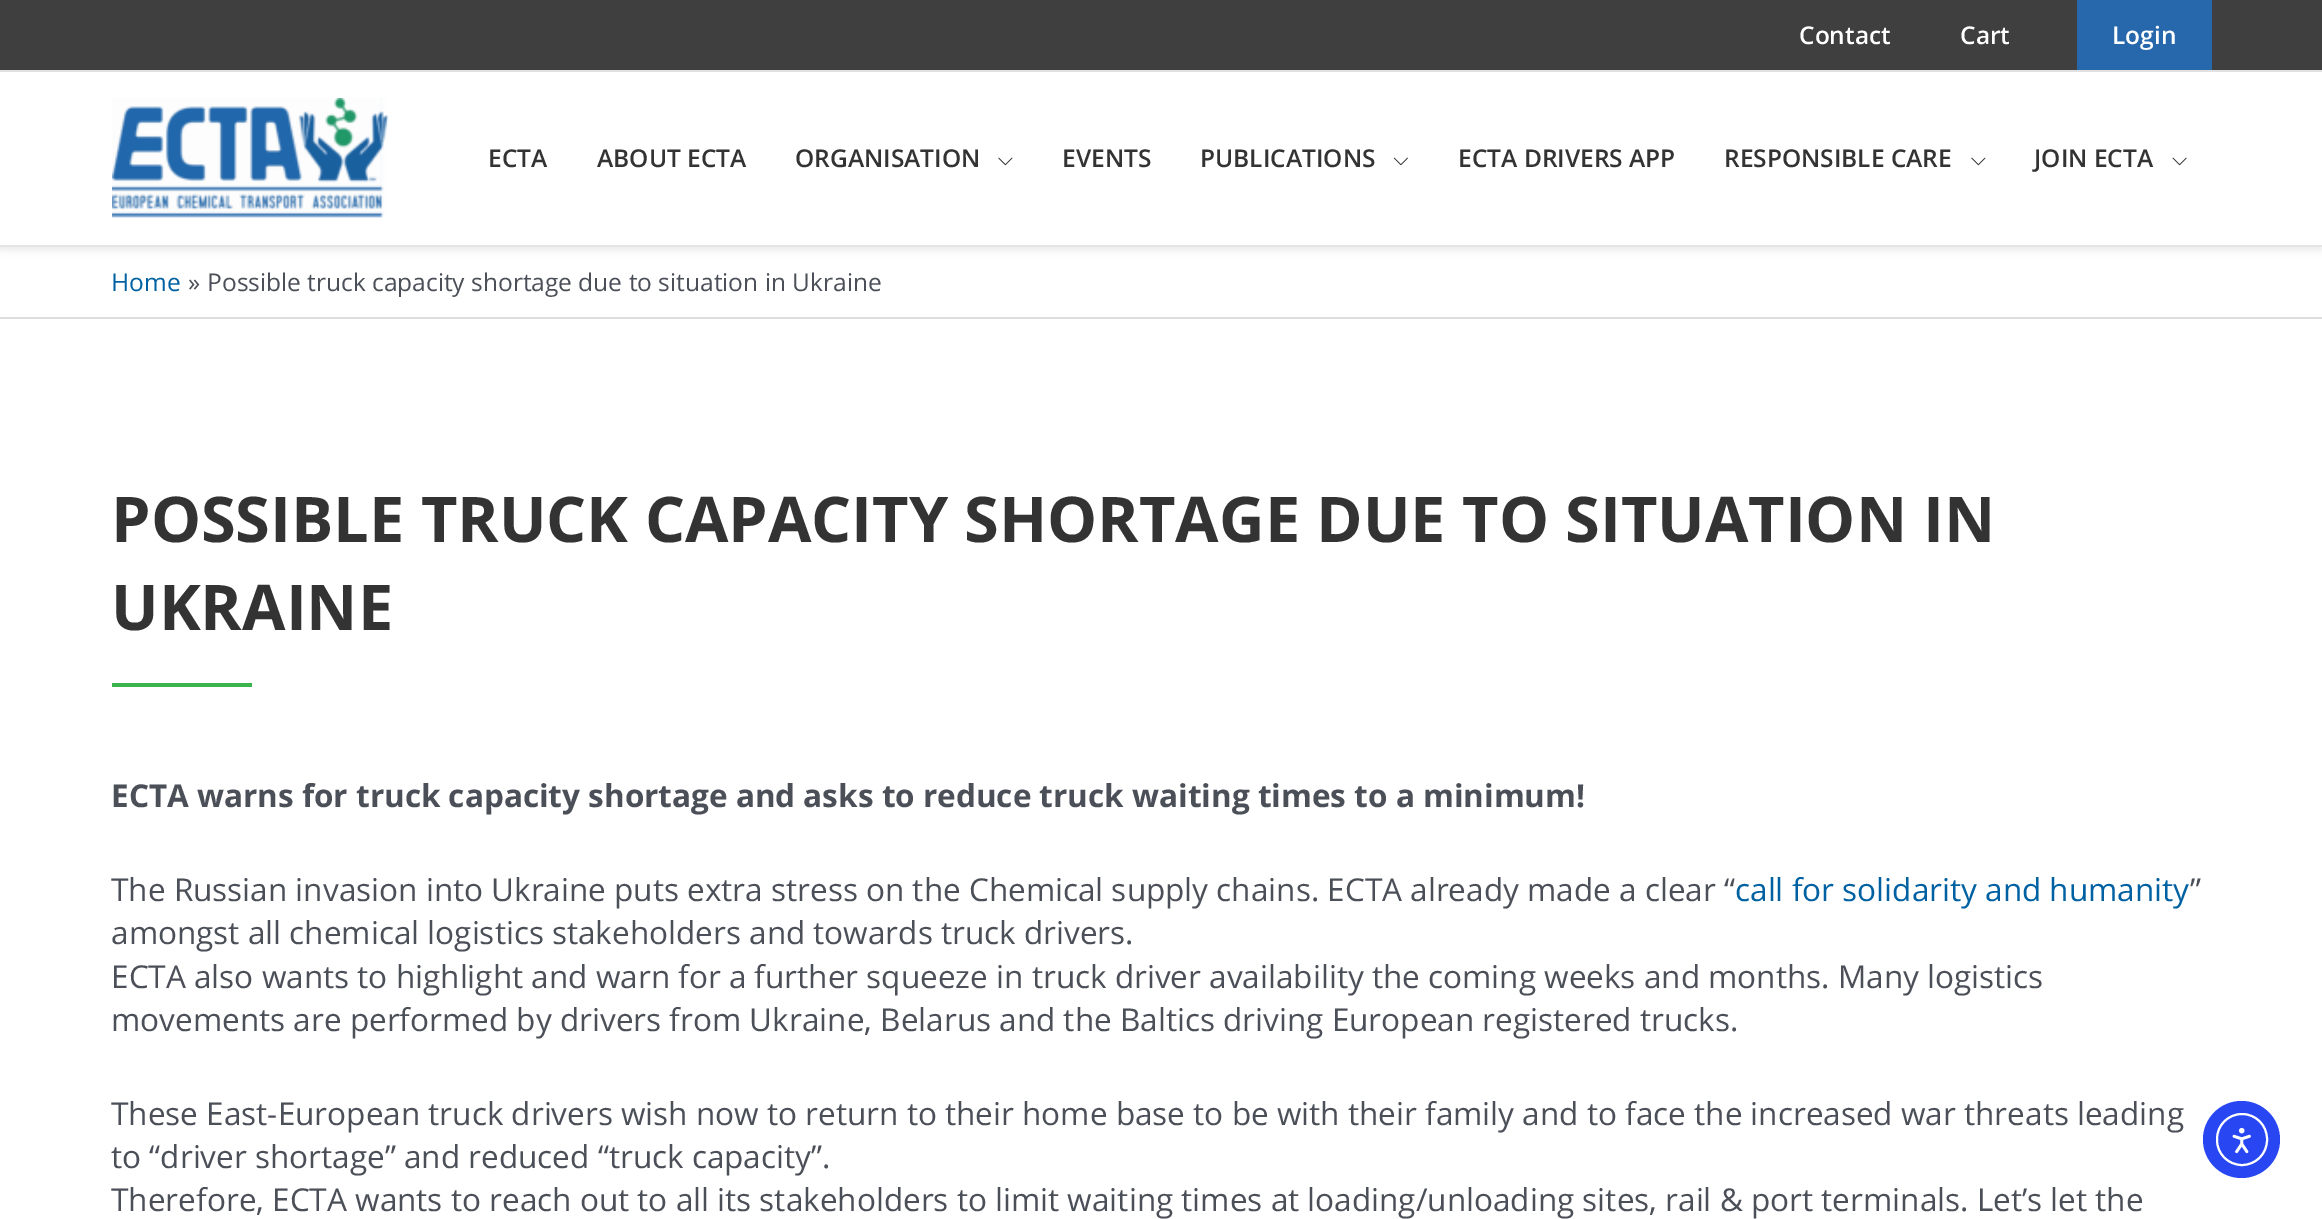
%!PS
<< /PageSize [2322 1219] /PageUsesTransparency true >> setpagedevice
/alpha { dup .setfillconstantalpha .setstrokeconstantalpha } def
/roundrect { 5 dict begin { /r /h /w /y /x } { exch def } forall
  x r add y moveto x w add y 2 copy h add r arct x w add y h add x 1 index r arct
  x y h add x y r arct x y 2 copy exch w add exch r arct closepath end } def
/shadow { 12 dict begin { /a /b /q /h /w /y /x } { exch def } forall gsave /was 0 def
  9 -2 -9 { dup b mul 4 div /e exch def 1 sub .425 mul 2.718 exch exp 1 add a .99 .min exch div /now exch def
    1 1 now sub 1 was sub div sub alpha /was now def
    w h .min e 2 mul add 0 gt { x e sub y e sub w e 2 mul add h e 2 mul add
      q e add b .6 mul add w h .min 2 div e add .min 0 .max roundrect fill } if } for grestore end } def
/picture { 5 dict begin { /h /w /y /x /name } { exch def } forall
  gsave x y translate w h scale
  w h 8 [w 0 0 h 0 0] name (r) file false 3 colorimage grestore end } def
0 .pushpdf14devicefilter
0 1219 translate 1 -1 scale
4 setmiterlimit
1 setgray
0 0 2322 1219 rectfill
0.247 setgray
0 0 2322 70 rectfill
0.898 setgray
0 70 2322 2 rectfill
/OpenSans-SemiBold [24.5 0 0 -24.5 0 0] selectfont
1 setgray
1799 44 moveto (Contact) show
1960 44 moveto (Cart) show
0.153 0.408 0.675 setrgbcolor
2077 0 135 70 rectfill
1 setgray
2112 44 moveto (Login) show
0 setgray
0 75 2322 175 0 3.5 0.08 shadow
1 setgray
0 72 2322 173 rectfill
0.898 setgray
0 245 2322 2 rectfill
(img1.rgb) 112 98 277 120 picture
0.2 setgray
488 167 moveto (ECTA) show
597 167 moveto (ABOUT ECTA) show
795 167 moveto (ORGANISATION) show
(img2.rgb) 998 157 15 9 picture
1062 167 moveto (EVENTS) show
1200 167 moveto (PUBLICATIONS) show
(img3.rgb) 1393 157 15 9 picture
1458 167 moveto (ECTA DRIVERS APP) show
1724 167 moveto (RESPONSIBLE CARE) show
(img2.rgb) 1971 157 15 9 picture
2034 167 moveto (JOIN ECTA) show
(img4.rgb) 2172 157 15 9 picture
0.867 setgray
0 317 2322 2 rectfill
/OpenSans-Regular [24.5 0 0 -24.5 0 0] selectfont
0 0.38 0.635 setrgbcolor
111 291 moveto (Home) show
0.294 0.31 0.345 setrgbcolor
188 291 moveto (») show
207 291 moveto (Possible truck capacity shortage due to situation in Ukraine) show
/OpenSans-Bold [63 0 0 -63 0 0] selectfont
0.2 setgray
111 542 moveto (POSSIBLE TRUCK CAPACITY SHORTAGE DUE TO SITUATION IN) show
111 630 moveto (UKRAINE) show
0.231 0.71 0.294 setrgbcolor
112 683 140 4 rectfill
/OpenSans-Bold [31.5 0 0 -31.5 0 0] selectfont
0.294 0.31 0.345 setrgbcolor
111 807 moveto (ECTA warns for truck capacity shortage and asks to reduce truck waiting times to a minimum!) show
/OpenSans-Regular [31.5 0 0 -31.5 0 0] selectfont
111 901 moveto (The Russian invasion into Ukraine puts extra stress on the Chemical supply chains. ECTA already made a clear “) show
0 0.38 0.635 setrgbcolor
1735 901 moveto (call for solidarity and humanity) show
0.294 0.31 0.345 setrgbcolor
2190 901 moveto (”) show
111 944 moveto (amongst all chemical logistics stakeholders and towards truck drivers.) show
111 988 moveto (ECTA also wants to highlight and warn for a further squeeze in truck driver availability the coming weeks and months. Many logistics) show
111 1031 moveto (movements are performed by drivers from Ukraine, Belarus and the Baltics driving European registered trucks.) show
111 1125 moveto (These East-European truck drivers wish now to return to their home base to be with their family and to face the increased war threats leading) show
111 1168 moveto (to “driver shortage” and reduced “truck capacity”.) show
111 1211 moveto (Therefore, ECTA wants to reach out to all its stakeholders to limit waiting times at loading/unloading sites, rail & port terminals. Let’s let the) show
0.157 0.278 0.953 setrgbcolor
newpath 2241.5 1139.5 38.5 0 360 arc closepath fill
1 setgray
2 setlinewidth
2217 1114 50 51 25 roundrect stroke
(img5.rgb) 2232 1127 19 27 picture
.poppdf14devicefilter showpage
